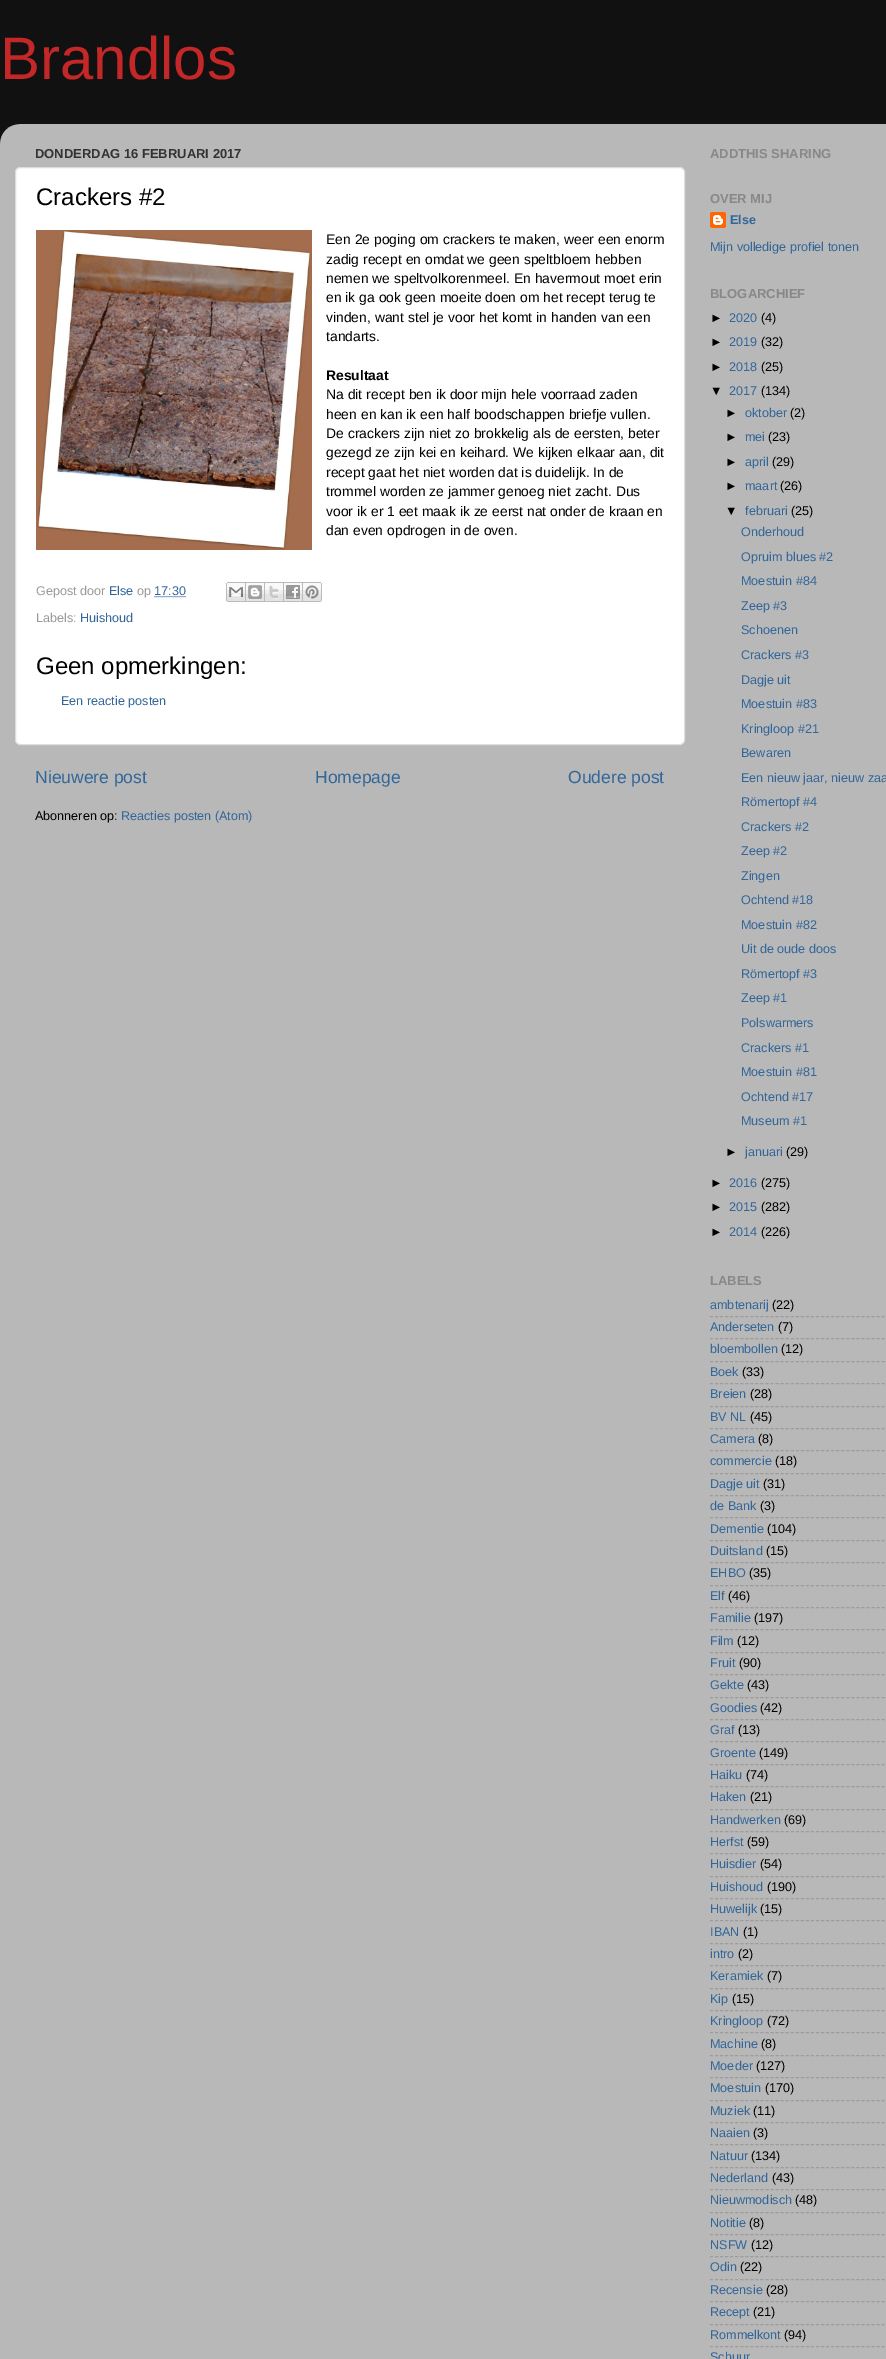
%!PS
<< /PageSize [886 2359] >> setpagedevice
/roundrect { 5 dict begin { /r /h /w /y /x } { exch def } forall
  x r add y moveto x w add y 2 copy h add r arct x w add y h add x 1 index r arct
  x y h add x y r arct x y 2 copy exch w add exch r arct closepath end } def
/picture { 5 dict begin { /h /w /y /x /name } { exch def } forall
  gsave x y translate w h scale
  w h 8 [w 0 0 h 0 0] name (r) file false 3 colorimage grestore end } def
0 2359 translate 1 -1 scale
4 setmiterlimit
0.067 setgray
0 0 886 2359 rectfill
/LiberationSans-Regular [60 0 0 -60 0 0] selectfont
0.765 0.153 0.153 setrgbcolor
0 79 moveto (Brandlos) show
(img1.rgb) 0 124 886 2235 picture
/LiberationSans-Bold [13 0 0 -13 0 0] selectfont
0.2 setgray
35 158 moveto (DONDERDAG 16 FEBRUARI 2017) show
1 setgray
15.5 167.5 669 577 4.5 roundrect gsave fill grestore
0.867 setgray
stroke
/LiberationSans-Regular [24 0 0 -24 0 0] selectfont
0 setgray
36 205 moveto (Crackers #2) show
(img2.rgb) 36 230 276 320 picture
/LiberationSans-Regular [13.9 0 0 -13.9 0 0] selectfont
326 244 moveto (Een 2e poging om crackers te maken, weer een enorm) show
326 264 moveto (zadig recept en omdat we geen speltbloem hebben) show
326 283 moveto (nemen we speltvolkorenmeel. En havermout moet erin) show
326 302 moveto (en ik ga ook geen moeite doen om het recept terug te) show
326 322 moveto (vinden, want stel je voor het komt in handen van een) show
326 341 moveto (tandarts.) show
/LiberationSans-Bold [13.9 0 0 -13.9 0 0] selectfont
326 380 moveto (Resultaat) show
/LiberationSans-Regular [13.9 0 0 -13.9 0 0] selectfont
326 399 moveto (Na dit recept ben ik door mijn hele voorraad zaden) show
326 419 moveto (heen en kan ik een half boodschappen briefje vullen.) show
326 438 moveto (De crackers zijn niet zo brokkelig als de eersten, beter) show
326 457 moveto (gezegd ze zijn kei en keihard. We kijken elkaar aan, dit) show
326 477 moveto (recept gaat het niet worden dat is duidelijk. In de) show
326 496 moveto (trommel worden ze jammer genoeg niet zacht. Dus) show
326 516 moveto (voor ik er 1 eet maak ik ze eerst nat onder de kraan en) show
326 535 moveto (dan even opdrogen in de oven.) show
/LiberationSans-Regular [12.6 0 0 -12.6 0 0] selectfont
0.6 setgray
36 595 moveto (Gepost door) show
0.2 0.4 0.6 setrgbcolor
109 595 moveto (Else) show
0.6 setgray
137 595 moveto (op) show
0.2 0.4 0.6 setrgbcolor
[1 1] 0 setdash
newpath 154.5 596.5 moveto 186 596.5 lineto stroke
154 595 moveto (17:30) show
(img3.rgb) 226 582 20 20 picture
(img4.rgb) 246 582 19 20 picture
(img5.rgb) 265 582 19 20 picture
(img6.rgb) 284 582 19 20 picture
(img7.rgb) 303 582 19 20 picture
0.6 setgray
36 622 moveto (Labels:) show
0.2 0.4 0.6 setrgbcolor
80 622 moveto (Huishoud) show
/LiberationSans-Regular [24 0 0 -24 0 0] selectfont
0 setgray
36 674 moveto (Geen opmerkingen:) show
/LiberationSans-Regular [12.6 0 0 -12.6 0 0] selectfont
0.2 0.4 0.6 setrgbcolor
61 705 moveto (Een reactie posten) show
/LiberationSans-Regular [17.5 0 0 -17.5 0 0] selectfont
35 783 moveto (Nieuwere post) show
315 783 moveto (Homepage) show
568 783 moveto (Oudere post) show
/LiberationSans-Regular [12.6 0 0 -12.6 0 0] selectfont
0 setgray
35 820 moveto (Abonneren op:) show
0.2 0.4 0.6 setrgbcolor
121 820 moveto (Reacties posten \(Atom\)) show
/LiberationSans-Bold [13 0 0 -13 0 0] selectfont
0.533 setgray
710 158 moveto (ADDTHIS SHARING) show
710 203 moveto (OVER MIJ) show
(img8.rgb) 710 212 16 16 picture
/LiberationSans-Bold [12.6 0 0 -12.6 0 0] selectfont
0.2 0.4 0.6 setrgbcolor
730 224 moveto (Else) show
/LiberationSans-Regular [12.6 0 0 -12.6 0 0] selectfont
710 251 moveto (Mijn volledige profiel tonen) show
/LiberationSans-Bold [13 0 0 -13 0 0] selectfont
0.533 setgray
710 298 moveto (BLOGARCHIEF) show
/LiberationSans-Regular [12.6 0 0 -12.6 0 0] selectfont
0 setgray
710 322 moveto (►) show
0.2 0.4 0.6 setrgbcolor
729 322 moveto (2020) show
0 setgray
761 322 moveto (\(4\)) show
710 346 moveto (►) show
0.2 0.4 0.6 setrgbcolor
729 346 moveto (2019) show
0 setgray
761 346 moveto (\(32\)) show
710 371 moveto (►) show
0.2 0.4 0.6 setrgbcolor
729 371 moveto (2018) show
0 setgray
761 371 moveto (\(25\)) show
710 395 moveto (▼) show
0.2 0.4 0.6 setrgbcolor
729 395 moveto (2017) show
0 setgray
761 395 moveto (\(134\)) show
725 417 moveto (►) show
0.2 0.4 0.6 setrgbcolor
745 417 moveto (oktober) show
0 setgray
790 417 moveto (\(2\)) show
725 441 moveto (►) show
0.2 0.4 0.6 setrgbcolor
745 441 moveto (mei) show
0 setgray
768 441 moveto (\(23\)) show
725 466 moveto (►) show
0.2 0.4 0.6 setrgbcolor
745 466 moveto (april) show
0 setgray
772 466 moveto (\(29\)) show
725 490 moveto (►) show
0.2 0.4 0.6 setrgbcolor
745 490 moveto (maart) show
0 setgray
780 490 moveto (\(26\)) show
725 515 moveto (▼) show
0.2 0.4 0.6 setrgbcolor
745 515 moveto (februari) show
0 setgray
791 515 moveto (\(25\)) show
0.2 0.4 0.6 setrgbcolor
741 536 moveto (Onderhoud) show
741 561 moveto (Opruim blues #2) show
741 585 moveto (Moestuin #84) show
741 610 moveto (Zeep #3) show
741 634 moveto (Schoenen) show
741 659 moveto (Crackers #3) show
741 684 moveto (Dagje uit) show
741 708 moveto (Moestuin #83) show
741 733 moveto (Kringloop #21) show
741 757 moveto (Bewaren) show
741 782 moveto (Een nieuw jaar, nieuw zaa) show
741 806 moveto (Römertopf #4) show
741 831 moveto (Crackers #2) show
741 855 moveto (Zeep #2) show
741 880 moveto (Zingen) show
741 904 moveto (Ochtend #18) show
741 929 moveto (Moestuin #82) show
741 953 moveto (Uit de oude doos) show
741 978 moveto (Römertopf #3) show
741 1002 moveto (Zeep #1) show
741 1027 moveto (Polswarmers) show
741 1052 moveto (Crackers #1) show
741 1076 moveto (Moestuin #81) show
741 1101 moveto (Ochtend #17) show
741 1125 moveto (Museum #1) show
0 setgray
725 1156 moveto (►) show
0.2 0.4 0.6 setrgbcolor
745 1156 moveto (januari) show
0 setgray
786 1156 moveto (\(29\)) show
710 1187 moveto (►) show
0.2 0.4 0.6 setrgbcolor
729 1187 moveto (2016) show
0 setgray
761 1187 moveto (\(275\)) show
710 1211 moveto (►) show
0.2 0.4 0.6 setrgbcolor
729 1211 moveto (2015) show
0 setgray
761 1211 moveto (\(282\)) show
710 1236 moveto (►) show
0.2 0.4 0.6 setrgbcolor
729 1236 moveto (2014) show
0 setgray
761 1236 moveto (\(226\)) show
/LiberationSans-Bold [13 0 0 -13 0 0] selectfont
0.533 setgray
710 1285 moveto (LABELS) show
/LiberationSans-Regular [12.6 0 0 -12.6 0 0] selectfont
0.2 0.4 0.6 setrgbcolor
710 1309 moveto (ambtenarij) show
0 setgray
772 1309 moveto (\(22\)) show
0.612 setgray
[3 2.05] 0 setdash
newpath 710 1316.5 moveto 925 1316.5 lineto stroke
0.2 0.4 0.6 setrgbcolor
710 1331 moveto (Anderseten) show
0 setgray
778 1331 moveto (\(7\)) show
0.612 setgray
newpath 710 1338.5 moveto 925 1338.5 lineto stroke
0.2 0.4 0.6 setrgbcolor
710 1353 moveto (bloembollen) show
0 setgray
781 1353 moveto (\(12\)) show
0.612 setgray
newpath 710 1361.5 moveto 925 1361.5 lineto stroke
0.2 0.4 0.6 setrgbcolor
710 1376 moveto (Boek) show
0 setgray
742 1376 moveto (\(33\)) show
0.612 setgray
newpath 710 1383.5 moveto 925 1383.5 lineto stroke
0.2 0.4 0.6 setrgbcolor
710 1398 moveto (Breien) show
0 setgray
750 1398 moveto (\(28\)) show
0.612 setgray
newpath 710 1406.5 moveto 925 1406.5 lineto stroke
0.2 0.4 0.6 setrgbcolor
710 1421 moveto (BV NL) show
0 setgray
750 1421 moveto (\(45\)) show
0.612 setgray
newpath 710 1428.5 moveto 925 1428.5 lineto stroke
0.2 0.4 0.6 setrgbcolor
710 1443 moveto (Camera) show
0 setgray
758 1443 moveto (\(8\)) show
0.612 setgray
newpath 710 1450.5 moveto 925 1450.5 lineto stroke
0.2 0.4 0.6 setrgbcolor
710 1465 moveto (commercie) show
0 setgray
775 1465 moveto (\(18\)) show
0.612 setgray
newpath 710 1473.5 moveto 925 1473.5 lineto stroke
0.2 0.4 0.6 setrgbcolor
710 1488 moveto (Dagje uit) show
0 setgray
763 1488 moveto (\(31\)) show
0.612 setgray
newpath 710 1495.5 moveto 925 1495.5 lineto stroke
0.2 0.4 0.6 setrgbcolor
710 1510 moveto (de Bank) show
0 setgray
760 1510 moveto (\(3\)) show
0.612 setgray
newpath 710 1517.5 moveto 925 1517.5 lineto stroke
0.2 0.4 0.6 setrgbcolor
710 1533 moveto (Dementie) show
0 setgray
767 1533 moveto (\(104\)) show
0.612 setgray
newpath 710 1540.5 moveto 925 1540.5 lineto stroke
0.2 0.4 0.6 setrgbcolor
710 1555 moveto (Duitsland) show
0 setgray
766 1555 moveto (\(15\)) show
0.612 setgray
newpath 710 1562.5 moveto 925 1562.5 lineto stroke
0.2 0.4 0.6 setrgbcolor
710 1577 moveto (EHBO) show
0 setgray
749 1577 moveto (\(35\)) show
0.612 setgray
newpath 710 1585.5 moveto 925 1585.5 lineto stroke
0.2 0.4 0.6 setrgbcolor
710 1600 moveto (Elf) show
0 setgray
728 1600 moveto (\(46\)) show
0.612 setgray
newpath 710 1607.5 moveto 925 1607.5 lineto stroke
0.2 0.4 0.6 setrgbcolor
710 1622 moveto (Familie) show
0 setgray
754 1622 moveto (\(197\)) show
0.612 setgray
newpath 710 1629.5 moveto 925 1629.5 lineto stroke
0.2 0.4 0.6 setrgbcolor
710 1645 moveto (Film) show
0 setgray
737 1645 moveto (\(12\)) show
0.612 setgray
newpath 710 1652.5 moveto 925 1652.5 lineto stroke
0.2 0.4 0.6 setrgbcolor
710 1667 moveto (Fruit) show
0 setgray
739 1667 moveto (\(90\)) show
0.612 setgray
newpath 710 1674.5 moveto 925 1674.5 lineto stroke
0.2 0.4 0.6 setrgbcolor
710 1689 moveto (Gekte) show
0 setgray
747 1689 moveto (\(43\)) show
0.612 setgray
newpath 710 1697.5 moveto 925 1697.5 lineto stroke
0.2 0.4 0.6 setrgbcolor
710 1712 moveto (Goodies) show
0 setgray
760 1712 moveto (\(42\)) show
0.612 setgray
newpath 710 1719.5 moveto 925 1719.5 lineto stroke
0.2 0.4 0.6 setrgbcolor
710 1734 moveto (Graf) show
0 setgray
738 1734 moveto (\(13\)) show
0.612 setgray
newpath 710 1741.5 moveto 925 1741.5 lineto stroke
0.2 0.4 0.6 setrgbcolor
710 1757 moveto (Groente) show
0 setgray
759 1757 moveto (\(149\)) show
0.612 setgray
newpath 710 1764.5 moveto 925 1764.5 lineto stroke
0.2 0.4 0.6 setrgbcolor
710 1779 moveto (Haiku) show
0 setgray
746 1779 moveto (\(74\)) show
0.612 setgray
newpath 710 1786.5 moveto 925 1786.5 lineto stroke
0.2 0.4 0.6 setrgbcolor
710 1801 moveto (Haken) show
0 setgray
750 1801 moveto (\(21\)) show
0.612 setgray
newpath 710 1809.5 moveto 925 1809.5 lineto stroke
0.2 0.4 0.6 setrgbcolor
710 1824 moveto (Handwerken) show
0 setgray
784 1824 moveto (\(69\)) show
0.612 setgray
newpath 710 1831.5 moveto 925 1831.5 lineto stroke
0.2 0.4 0.6 setrgbcolor
710 1846 moveto (Herfst) show
0 setgray
747 1846 moveto (\(59\)) show
0.612 setgray
newpath 710 1853.5 moveto 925 1853.5 lineto stroke
0.2 0.4 0.6 setrgbcolor
710 1868 moveto (Huisdier) show
0 setgray
760 1868 moveto (\(54\)) show
0.612 setgray
newpath 710 1876.5 moveto 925 1876.5 lineto stroke
0.2 0.4 0.6 setrgbcolor
710 1891 moveto (Huishoud) show
0 setgray
767 1891 moveto (\(190\)) show
0.612 setgray
newpath 710 1898.5 moveto 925 1898.5 lineto stroke
0.2 0.4 0.6 setrgbcolor
710 1913 moveto (Huwelijk) show
0 setgray
760 1913 moveto (\(15\)) show
0.612 setgray
newpath 710 1920.5 moveto 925 1920.5 lineto stroke
0.2 0.4 0.6 setrgbcolor
710 1936 moveto (IBAN) show
0 setgray
743 1936 moveto (\(1\)) show
0.612 setgray
newpath 710 1943.5 moveto 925 1943.5 lineto stroke
0.2 0.4 0.6 setrgbcolor
710 1958 moveto (intro) show
0 setgray
738 1958 moveto (\(2\)) show
0.612 setgray
newpath 710 1965.5 moveto 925 1965.5 lineto stroke
0.2 0.4 0.6 setrgbcolor
710 1980 moveto (Keramiek) show
0 setgray
767 1980 moveto (\(7\)) show
0.612 setgray
newpath 710 1988.5 moveto 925 1988.5 lineto stroke
0.2 0.4 0.6 setrgbcolor
710 2003 moveto (Kip) show
0 setgray
732 2003 moveto (\(15\)) show
0.612 setgray
newpath 710 2010.5 moveto 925 2010.5 lineto stroke
0.2 0.4 0.6 setrgbcolor
710 2025 moveto (Kringloop) show
0 setgray
767 2025 moveto (\(72\)) show
0.612 setgray
newpath 710 2032.5 moveto 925 2032.5 lineto stroke
0.2 0.4 0.6 setrgbcolor
710 2048 moveto (Machine) show
0 setgray
761 2048 moveto (\(8\)) show
0.612 setgray
newpath 710 2055.5 moveto 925 2055.5 lineto stroke
0.2 0.4 0.6 setrgbcolor
710 2070 moveto (Moeder) show
0 setgray
756 2070 moveto (\(127\)) show
0.612 setgray
newpath 710 2077.5 moveto 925 2077.5 lineto stroke
0.2 0.4 0.6 setrgbcolor
710 2092 moveto (Moestuin) show
0 setgray
765 2092 moveto (\(170\)) show
0.612 setgray
newpath 710 2100.5 moveto 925 2100.5 lineto stroke
0.2 0.4 0.6 setrgbcolor
710 2115 moveto (Muziek) show
0 setgray
753 2115 moveto (\(11\)) show
0.612 setgray
newpath 710 2122.5 moveto 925 2122.5 lineto stroke
0.2 0.4 0.6 setrgbcolor
710 2137 moveto (Naaien) show
0 setgray
753 2137 moveto (\(3\)) show
0.612 setgray
newpath 710 2144.5 moveto 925 2144.5 lineto stroke
0.2 0.4 0.6 setrgbcolor
710 2160 moveto (Natuur) show
0 setgray
751 2160 moveto (\(134\)) show
0.612 setgray
newpath 710 2167.5 moveto 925 2167.5 lineto stroke
0.2 0.4 0.6 setrgbcolor
710 2182 moveto (Nederland) show
0 setgray
772 2182 moveto (\(43\)) show
0.612 setgray
newpath 710 2189.5 moveto 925 2189.5 lineto stroke
0.2 0.4 0.6 setrgbcolor
710 2204 moveto (Nieuwmodisch) show
0 setgray
795 2204 moveto (\(48\)) show
0.612 setgray
newpath 710 2212.5 moveto 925 2212.5 lineto stroke
0.2 0.4 0.6 setrgbcolor
710 2227 moveto (Notitie) show
0 setgray
749 2227 moveto (\(8\)) show
0.612 setgray
newpath 710 2234.5 moveto 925 2234.5 lineto stroke
0.2 0.4 0.6 setrgbcolor
710 2249 moveto (NSFW) show
0 setgray
751 2249 moveto (\(12\)) show
0.612 setgray
newpath 710 2256.5 moveto 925 2256.5 lineto stroke
0.2 0.4 0.6 setrgbcolor
710 2271 moveto (Odin) show
0 setgray
740 2271 moveto (\(22\)) show
0.612 setgray
newpath 710 2279.5 moveto 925 2279.5 lineto stroke
0.2 0.4 0.6 setrgbcolor
710 2294 moveto (Recensie) show
0 setgray
766 2294 moveto (\(28\)) show
0.612 setgray
newpath 710 2301.5 moveto 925 2301.5 lineto stroke
0.2 0.4 0.6 setrgbcolor
710 2316 moveto (Recept) show
0 setgray
753 2316 moveto (\(21\)) show
0.612 setgray
newpath 710 2324.5 moveto 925 2324.5 lineto stroke
0.2 0.4 0.6 setrgbcolor
710 2339 moveto (Rommelkont) show
0 setgray
784 2339 moveto (\(94\)) show
0.612 setgray
newpath 710 2346.5 moveto 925 2346.5 lineto stroke
0.2 0.4 0.6 setrgbcolor
710 2361 moveto (Schuur) show
showpage
